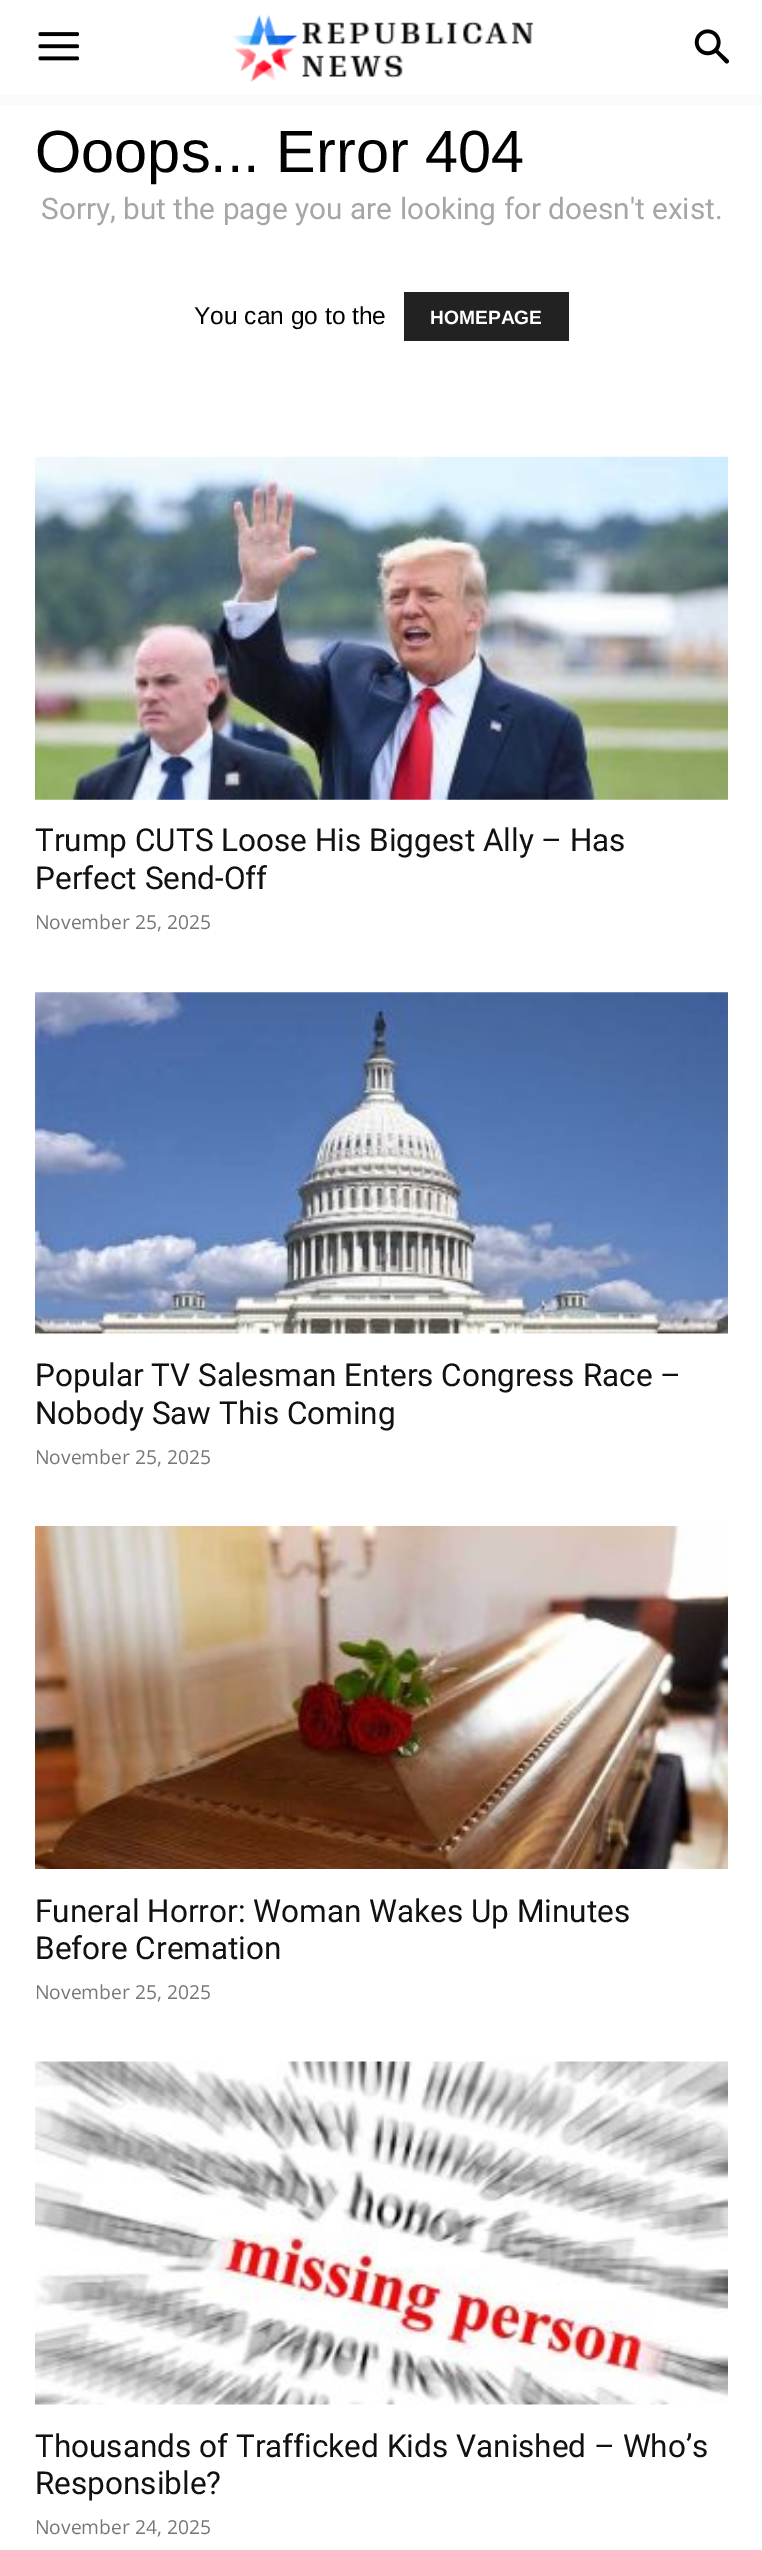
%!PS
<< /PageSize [762 2550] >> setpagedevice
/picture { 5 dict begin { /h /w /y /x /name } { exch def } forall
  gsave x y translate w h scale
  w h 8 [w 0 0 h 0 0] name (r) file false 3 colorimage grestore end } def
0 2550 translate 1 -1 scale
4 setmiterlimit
1 setgray
0 0 762 2550 rectfill
(img1.rgb) 38 32 41 29 picture
(img2.rgb) 232 14 301 68 picture
(img3.rgb) 694 29 36 35 picture
0.98 setgray
0 95 762 10 rectfill
/LiberationSans-Regular [59.5 0 0 -59.5 0 0] selectfont
0 setgray
35 172 moveto (Ooops... Error 404) show
/Roboto-Regular [29.75 0 0 -29.75 0 0] selectfont
0.651 setgray
41 219 moveto (Sorry, but the page you are looking for doesn't exist.) show
/LiberationSans-Regular [24.5 0 0 -24.5 0 0] selectfont
0 setgray
194 324 moveto (You can go to the) show
0.133 setgray
404 292 165 49 rectfill
/LiberationSans-Bold [19.25 0 0 -19.25 0 0] selectfont
1 setgray
430 324 moveto (HOMEPAGE) show
(img4.rgb) 35 456 693 344 picture
/Roboto-Regular [31.5 0 0 -31.5 0 0] selectfont
0.067 setgray
35 851 moveto (Trump CUTS Loose His Biggest Ally – Has) show
35 889 moveto (Perfect Send-Off) show
/OpenSans-Regular [19.25 0 0 -19.25 0 0] selectfont
0.463 setgray
35 929 moveto (November 25, 2025) show
(img5.rgb) 35 992 693 342 picture
/Roboto-Regular [31.5 0 0 -31.5 0 0] selectfont
0.067 setgray
35 1386 moveto (Popular TV Salesman Enters Congress Race –) show
35 1424 moveto (Nobody Saw This Coming) show
/OpenSans-Regular [19.25 0 0 -19.25 0 0] selectfont
0.463 setgray
35 1464 moveto (November 25, 2025) show
(img6.rgb) 35 1526 693 343 picture
/Roboto-Regular [31.5 0 0 -31.5 0 0] selectfont
0.067 setgray
35 1922 moveto (Funeral Horror: Woman Wakes Up Minutes) show
35 1959 moveto (Before Cremation) show
/OpenSans-Regular [19.25 0 0 -19.25 0 0] selectfont
0.463 setgray
35 1999 moveto (November 25, 2025) show
(img7.rgb) 35 2061 693 344 picture
/Roboto-Regular [31.5 0 0 -31.5 0 0] selectfont
0.067 setgray
35 2457 moveto (Thousands of Trafficked Kids Vanished – Who’s) show
35 2494 moveto (Responsible?) show
/OpenSans-Regular [19.25 0 0 -19.25 0 0] selectfont
0.463 setgray
35 2534 moveto (November 24, 2025) show
showpage
